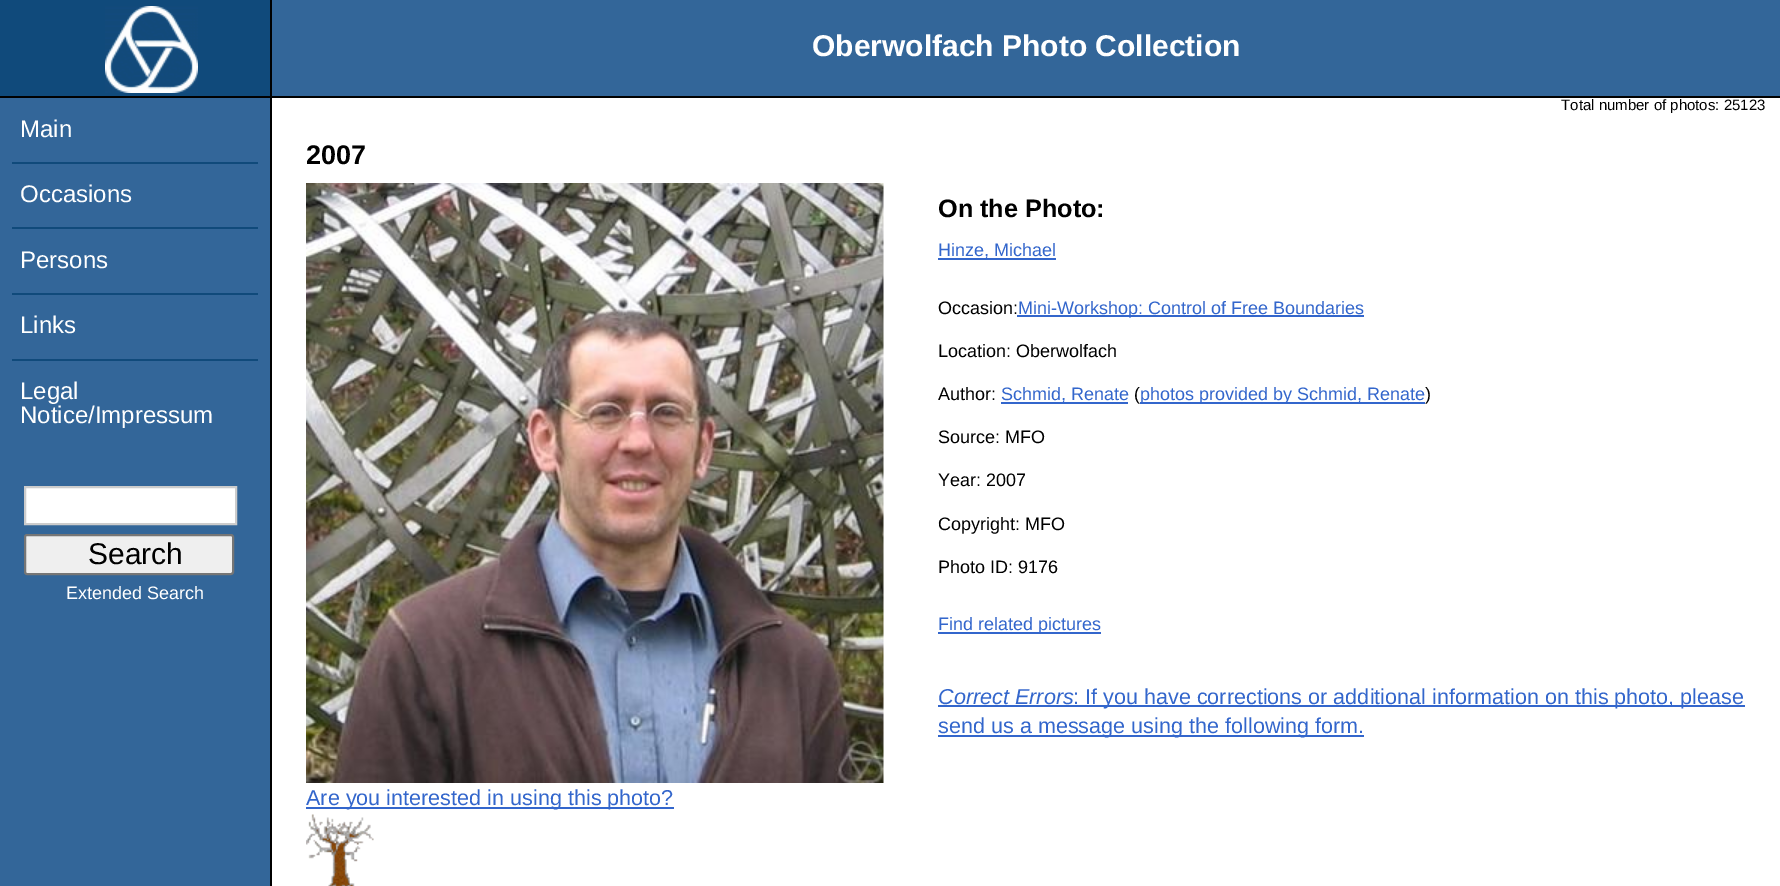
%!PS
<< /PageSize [1780 886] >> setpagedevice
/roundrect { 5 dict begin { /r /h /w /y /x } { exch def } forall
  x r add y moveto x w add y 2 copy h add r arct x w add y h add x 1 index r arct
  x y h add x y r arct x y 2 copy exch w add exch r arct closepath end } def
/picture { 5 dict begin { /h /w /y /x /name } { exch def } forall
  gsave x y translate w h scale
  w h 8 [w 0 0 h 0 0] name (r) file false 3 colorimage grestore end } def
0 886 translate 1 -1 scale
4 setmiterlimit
1 setgray
0 0 1780 886 rectfill
0.2 0.4 0.6 setrgbcolor
272 0 1508 96 rectfill
0 setgray
0 96 1780 2 rectfill
0.063 0.29 0.482 setrgbcolor
0 0 270 96 rectfill
0 setgray
270 0 2 96 rectfill
(img1.rgb) 105 6 93 87 picture
/LiberationSans-Bold [30 0 0 -30 0 0] selectfont
1 setgray
812 56 moveto (Oberwolfach Photo Collection) show
/LiberationSans-Regular [15 0 0 -15 0 0] selectfont
0 setgray
1561 110 moveto (Total number of photos: 25123) show
0.2 0.4 0.6 setrgbcolor
0 98 270 788 rectfill
0 setgray
270 98 2 788 rectfill
/LiberationSans-Regular [24 0 0 -24 0 0] selectfont
1 setgray
20 137 moveto (Main) show
0.063 0.29 0.482 setrgbcolor
12 162 246 2 rectfill
1 setgray
20 202 moveto (Occasions) show
0.063 0.29 0.482 setrgbcolor
12 227 246 2 rectfill
1 setgray
20 268 moveto (Persons) show
0.063 0.29 0.482 setrgbcolor
12 293 246 2 rectfill
1 setgray
20 333 moveto (Links) show
0.063 0.29 0.482 setrgbcolor
12 359 246 2 rectfill
1 setgray
20 399 moveto (Legal) show
20 423 moveto (Notice/Impressum) show
newpath 25 487 moveto 236 487 lineto 236 524 lineto 25 524 lineto closepath gsave fill grestore
0.8 setgray
2 setlinewidth
stroke
0.937 setgray
25 535 208 39 2 roundrect gsave fill grestore
0.463 setgray
stroke
/LiberationSans-Regular [30 0 0 -30 0 0] selectfont
0 setgray
88 564 moveto (Search) show
/LiberationSans-Regular [18 0 0 -18 0 0] selectfont
1 setgray
66 599 moveto (Extended Search) show
/LiberationSans-Bold [27 0 0 -27 0 0] selectfont
0 setgray
306 164 moveto (2007) show
(img2.rgb) 306 183 578 600 picture
/LiberationSans-Bold [25.25 0 0 -25.25 0 0] selectfont
938 217 moveto (On the Photo:) show
0.2 0.4 0.8 setrgbcolor
938 258 118 2 rectfill
/LiberationSans-Regular [18 0 0 -18 0 0] selectfont
938 256 moveto (Hinze, Michael) show
0 setgray
938 314 moveto (Occasion:) show
0.2 0.4 0.8 setrgbcolor
1017 315 347 2 rectfill
1018 314 moveto (Mini-Workshop: Control of Free Boundaries) show
0 setgray
938 357 moveto (Location: Oberwolfach) show
938 400 moveto (Author:) show
0.2 0.4 0.8 setrgbcolor
1001 402 127 2 rectfill
1001 400 moveto (Schmid, Renate) show
0 setgray
1134 400 moveto (\() show
0.2 0.4 0.8 setrgbcolor
1140 402 285 2 rectfill
1140 400 moveto (photos provided by Schmid, Renate) show
0 setgray
1425 400 moveto (\)) show
938 443 moveto (Source: MFO) show
938 486 moveto (Year: 2007) show
938 530 moveto (Copyright: MFO) show
938 573 moveto (Photo ID: 9176) show
0.2 0.4 0.8 setrgbcolor
938 632 163 2 rectfill
938 630 moveto (Find related pictures) show
/LiberationSans-Italic [21.6 0 0 -21.6 0 0] selectfont
938 704 moveto (Correct Errors) show
938 705 807 2 rectfill
/LiberationSans-Regular [21.6 0 0 -21.6 0 0] selectfont
1073 704 moveto (: If you have corrections or additional information on this photo,) show
1680 704 moveto (please) show
938 735 426 2 rectfill
938 733 moveto (send us a message using the following form.) show
306 807 368 2 rectfill
306 805 moveto (Are you interested in using this photo?) show
(img3.rgb) 306 814 68 72 picture
showpage
